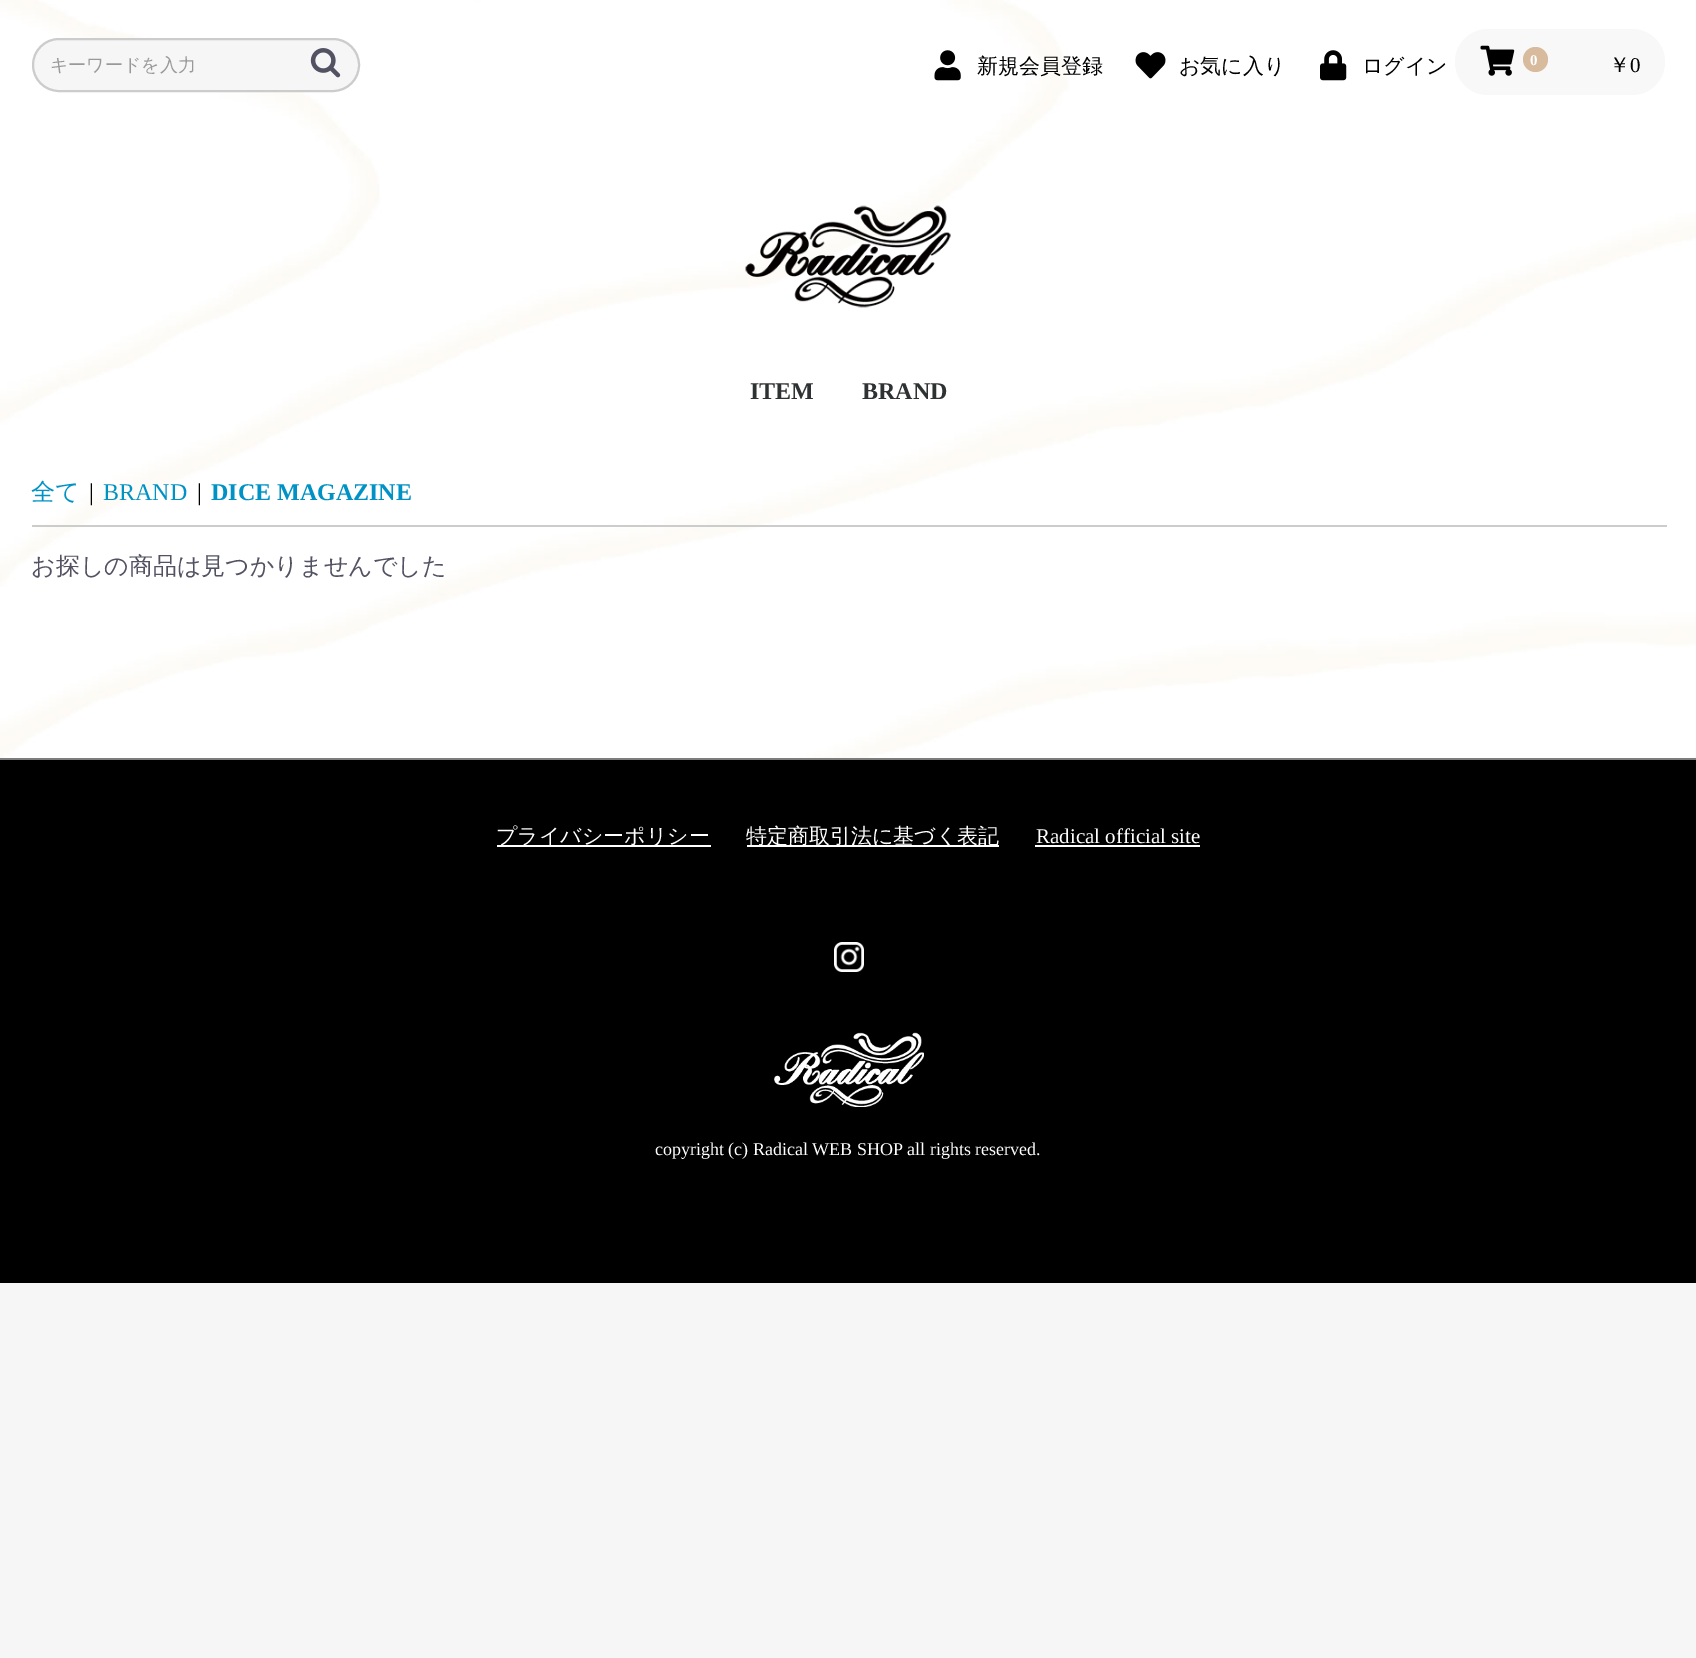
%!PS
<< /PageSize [1696 1658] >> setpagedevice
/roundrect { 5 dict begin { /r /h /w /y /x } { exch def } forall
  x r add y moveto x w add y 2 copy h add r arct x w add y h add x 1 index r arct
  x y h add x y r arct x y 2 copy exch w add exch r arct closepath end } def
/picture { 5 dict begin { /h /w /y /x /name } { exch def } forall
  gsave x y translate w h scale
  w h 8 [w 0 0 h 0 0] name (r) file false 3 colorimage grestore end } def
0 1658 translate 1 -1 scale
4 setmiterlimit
0.965 setgray
0 0 1696 1658 rectfill
(img1.rgb) 0 0 1696 758 picture
33 39 326 52 26 roundrect gsave fill grestore
0.8 setgray
2 setlinewidth
stroke
/WenQuanYiZenHei-Medium [18 0 0 -18 0 0] selectfont
0.6 setgray
50 71 moveto (キーワードを入力) show
(img2.rgb) 310 48 31 30 picture
(img3.rgb) 934 50 27 31 picture
/WenQuanYiZenHei-Medium [21 0 0 -21 0 0] selectfont
0 setgray
977 73 moveto (新規会員登録) show
(img4.rgb) 1135 52 31 27 picture
1179 73 moveto (お気に入り) show
(img5.rgb) 1320 50 27 31 picture
1362 73 moveto (ログイン) show
0.973 setgray
1455 29 210 66 33 roundrect fill
(img6.rgb) 1480 45 35 31 picture
0.847 0.733 0.612 setrgbcolor
newpath 1535.5 59.5 12.5 0 360 arc closepath fill
/LiberationSerif-Bold [15 0 0 -15 0 0] selectfont
1 setgray
1530 65 moveto (0) show
/WenQuanYiZenHei-Medium [21 0 0 -21 0 0] selectfont
0 setgray
1609 72 moveto (￥) show
/LiberationSerif-Regular [21 0 0 -21 0 0] selectfont
1630 72 moveto (0) show
(img7.rgb) 745 205 206 103 picture
/LiberationSerif-Bold [24 0 0 -24 0 0] selectfont
0.18 0.196 0.2 setrgbcolor
750 399 moveto (ITEM) show
862 399 moveto (BRAND) show
/WenQuanYiZenHei-Medium [24 0 0 -24 0 0] selectfont
0 0.573 0.769 setrgbcolor
31 500 moveto (全て) show
/LiberationSerif-Regular [24 0 0 -24 0 0] selectfont
0 setgray
89 500 moveto (|) show
0 0.573 0.769 setrgbcolor
103 500 moveto (BRAND) show
0 setgray
197 500 moveto (|) show
/LiberationSerif-Bold [24 0 0 -24 0 0] selectfont
0 0.573 0.769 setrgbcolor
211 500 moveto (DICE MAGAZINE) show
0.8 setgray
32 525 1635 2 rectfill
/WenQuanYiZenHei-Medium [24 0 0 -24 0 0] selectfont
0.322 0.322 0.388 setrgbcolor
31 574 moveto (お探しの商品は見つかりませんでした) show
0 setgray
0 760 1696 523 rectfill
0.49 setgray
0 758 1696 2 rectfill
1 setgray
497 845 214 2 rectfill
/WenQuanYiZenHei-Medium [21 0 0 -21 0 0] selectfont
496 843 moveto (プライバシーポリシー) show
747 845 252 2 rectfill
746 843 moveto (特定商取引法に基づく表記) show
/LiberationSerif-Regular [21 0 0 -21 0 0] selectfont
1036 843 moveto (Radical official site) show
1035 845 165 2 rectfill
(img8.rgb) 834 942 30 30 picture
(img9.rgb) 774 1032 150 75 picture
/LiberationSerif-Regular [18 0 0 -18 0 0] selectfont
655 1155 moveto (copyright \(c\) Radical WEB SHOP all rights reserved.) show
showpage
